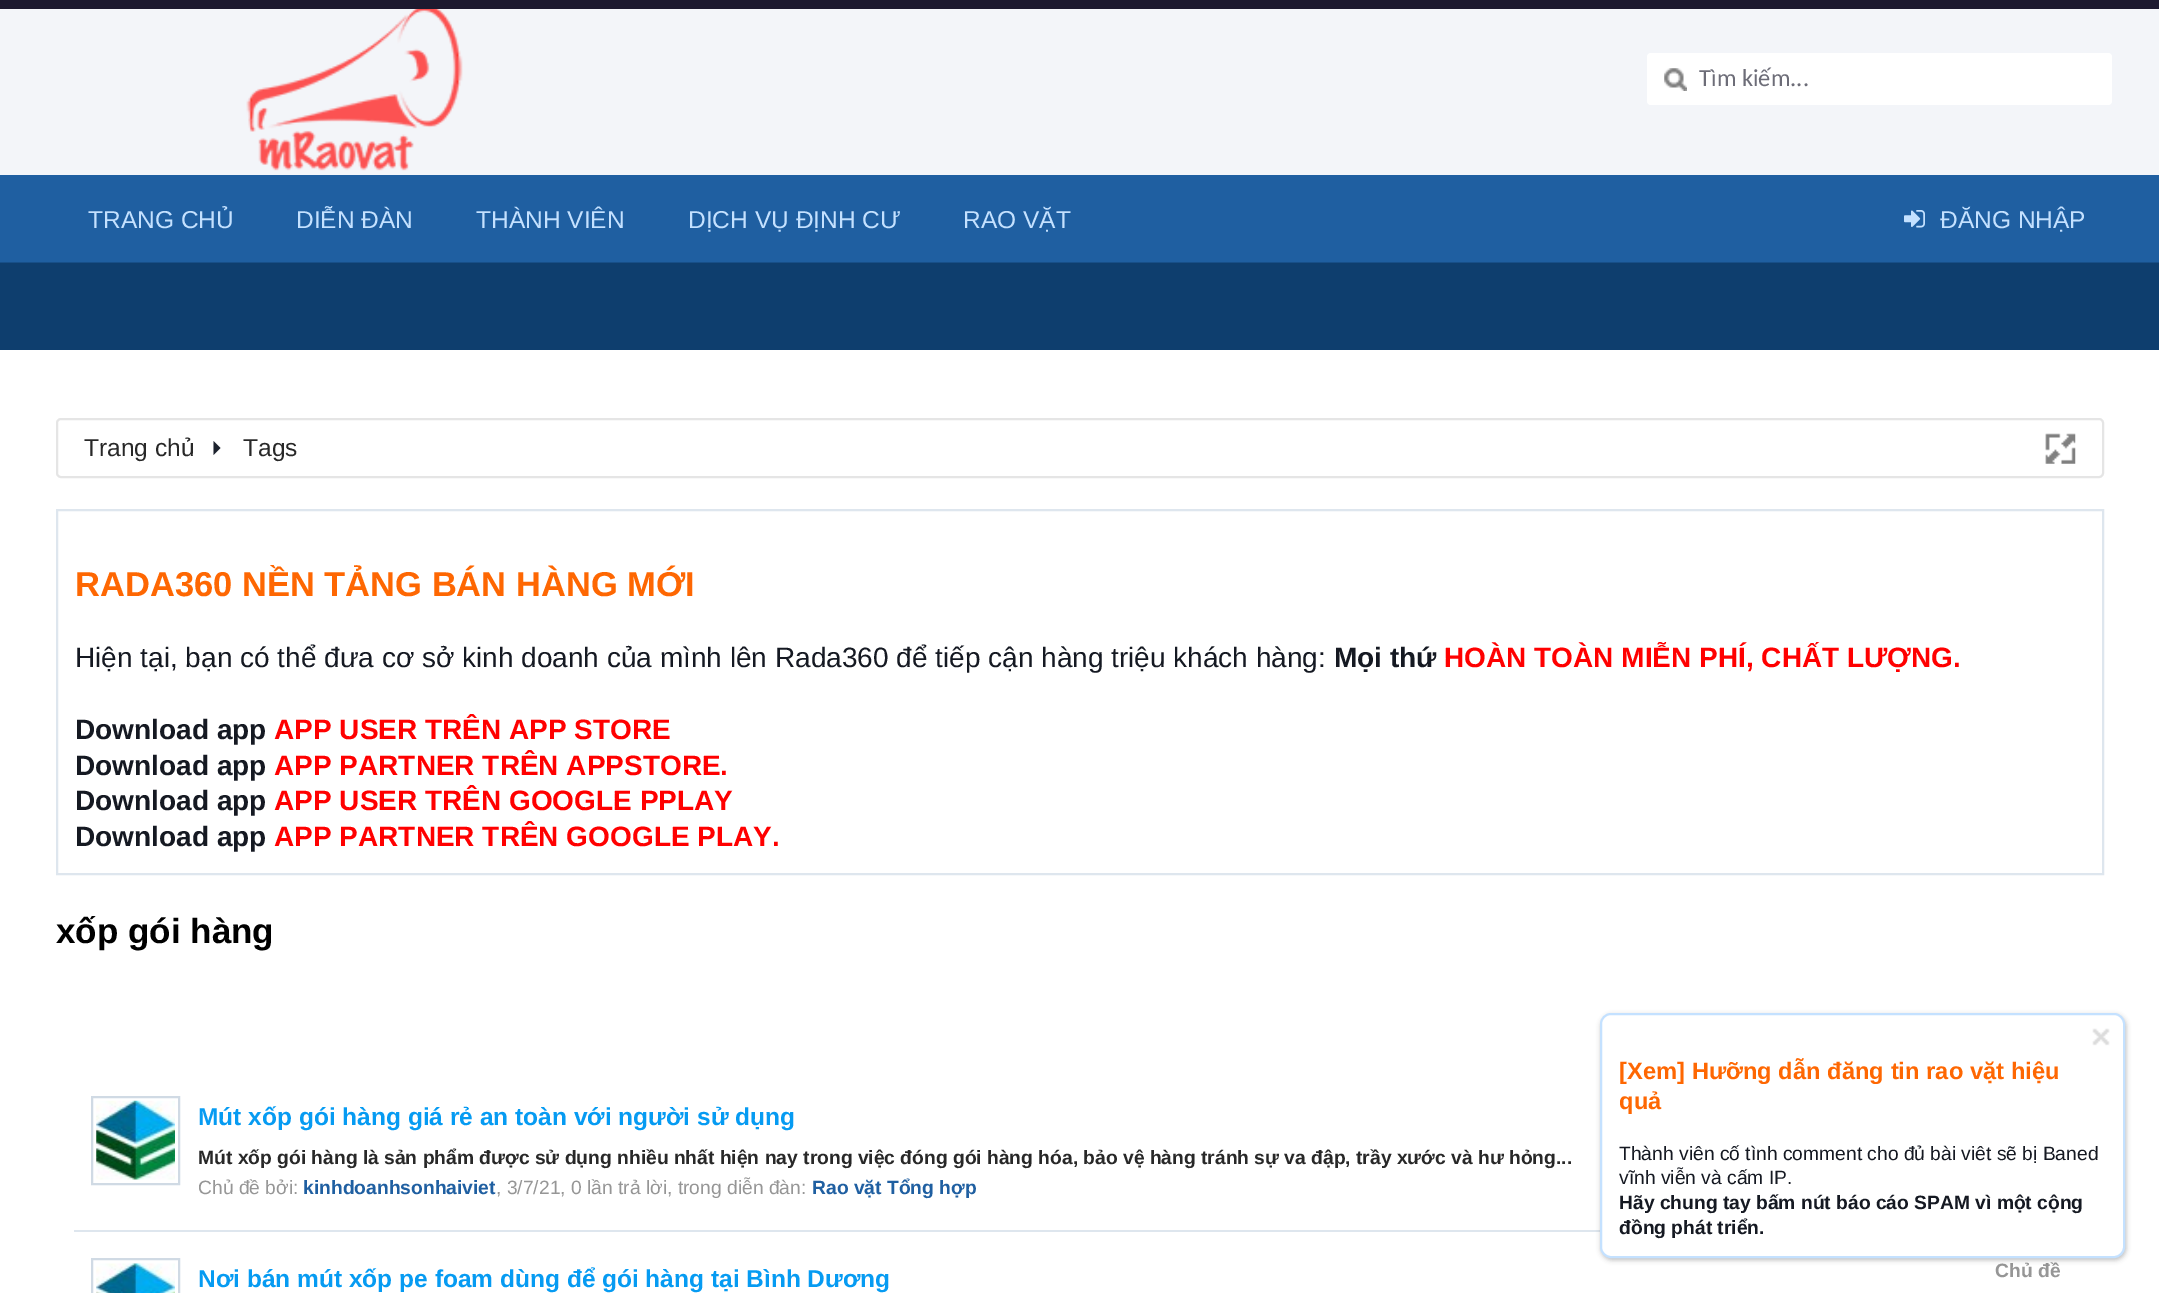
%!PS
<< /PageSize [2159 1293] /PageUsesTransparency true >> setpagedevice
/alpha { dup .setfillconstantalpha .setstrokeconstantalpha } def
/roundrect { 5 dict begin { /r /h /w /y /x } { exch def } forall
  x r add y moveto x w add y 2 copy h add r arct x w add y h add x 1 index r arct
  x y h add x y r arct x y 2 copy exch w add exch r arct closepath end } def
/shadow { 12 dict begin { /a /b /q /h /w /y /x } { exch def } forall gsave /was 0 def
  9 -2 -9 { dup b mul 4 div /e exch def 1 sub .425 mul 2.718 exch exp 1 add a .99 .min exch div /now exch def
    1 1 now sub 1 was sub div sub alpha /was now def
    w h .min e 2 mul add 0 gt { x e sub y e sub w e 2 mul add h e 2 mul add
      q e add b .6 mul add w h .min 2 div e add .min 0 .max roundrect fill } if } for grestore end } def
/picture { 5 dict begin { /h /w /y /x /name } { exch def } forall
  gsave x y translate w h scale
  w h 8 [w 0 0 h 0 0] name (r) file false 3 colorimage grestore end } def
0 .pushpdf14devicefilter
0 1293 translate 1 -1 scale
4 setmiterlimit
1 setgray
0 0 2159 1293 rectfill
0.11 0.098 0.184 setrgbcolor
0 0 2159 9 rectfill
0.953 0.961 0.976 setrgbcolor
0 9 2159 166 rectfill
(img1.rgb) 246 9 217 162 picture
1 setgray
1647 53 465 52 4 roundrect fill
(img2.rgb) 1664 68 23 23 picture
/Carlito-Regular [24.5 0 0 -24.5 0 0] selectfont
0.427 0.427 0.471 setrgbcolor
1699 86 moveto (Tìm kiếm...) show
(img3.rgb) 0 175 2159 175 picture
/LiberationSans-Regular [24.5 0 0 -24.5 0 0] selectfont
0.769 0.882 1 setrgbcolor
88 228 moveto (TRANG CHỦ) show
296 228 moveto (DIỄN ĐÀN) show
476 228 moveto (THÀNH VIÊN) show
688 228 moveto (DỊCH VỤ ĐỊNH CƯ) show
963 228 moveto (RAO VẶT) show
(img4.rgb) 1904 210 21 18 picture
1940 228 moveto (ĐĂNG NHẬP) show
0.898 setgray
2 setlinewidth
57 419 2046 58 4 roundrect stroke
0.157 setgray
84 456 moveto (Trang chủ) show
0.114 0.133 0.18 setrgbcolor
newpath 213.5 455 moveto 213.5 441 lineto 220.5 448 lineto closepath fill
0.157 setgray
243 456 moveto (Tags) show
(img5.rgb) 2045 433 31 31 picture
0.871 0.902 0.933 setrgbcolor
57 510 2046 364 rectstroke
/LiberationSans-Bold [34.5 0 0 -34.5 0 0] selectfont
0.996 0.404 0.008 setrgbcolor
75 596 moveto (RADA360 NỀN TẢNG BÁN HÀNG MỚI) show
/LiberationSans-Regular [28 0 0 -28 0 0] selectfont
0.082 0.098 0.133 setrgbcolor
75 667 moveto (Hiện tại, bạn có thể đưa cơ sở kinh doanh của mình lên Rada360 để tiếp cận hàng triệu khách hàng:) show
/LiberationSans-Bold [28 0 0 -28 0 0] selectfont
1334 667 moveto (Mọi thứ) show
1 0 0 setrgbcolor
1444 667 moveto (HOÀN TOÀN MIỄN PHÍ, CHẤT LƯỢNG.) show
0.082 0.098 0.133 setrgbcolor
75 739 moveto (Download app) show
1 0 0 setrgbcolor
274 739 moveto (APP USER TRÊN APP STORE) show
0.082 0.098 0.133 setrgbcolor
75 775 moveto (Download app) show
1 0 0 setrgbcolor
274 775 moveto (APP PARTNER TRÊN APPSTORE.) show
0.082 0.098 0.133 setrgbcolor
75 810 moveto (Download app) show
1 0 0 setrgbcolor
274 810 moveto (APP USER TRÊN GOOGLE PPLAY) show
0.082 0.098 0.133 setrgbcolor
75 846 moveto (Download app) show
1 0 0 setrgbcolor
274 846 moveto (APP PARTNER TRÊN GOOGLE PLAY.) show
/LiberationSans-Bold [35 0 0 -35 0 0] selectfont
0 setgray
56 943 moveto (xốp gói hàng) show
0.871 0.902 0.933 setrgbcolor
74 1230 1526 2 rectfill
0.816 0.855 0.894 setrgbcolor
92 1097 87 87 rectstroke
(img6.rgb) 96 1100 79 80 picture
/LiberationSans-Bold [24.5 0 0 -24.5 0 0] selectfont
0.024 0.608 0.949 setrgbcolor
198 1125 moveto (Mút xốp gói hàng giá rẻ an toàn với người sử dụng) show
/LiberationSans-Bold [19.25 0 0 -19.25 0 0] selectfont
0.157 setgray
198 1164 moveto (Mút xốp gói hàng là sản phẩm được sử dụng nhiều nhất hiện nay trong việc đóng gói hàng hóa, bảo vệ hàng tránh sự va đập, trầy xước và hư hỏng...) show
/LiberationSans-Regular [19.25 0 0 -19.25 0 0] selectfont
0.588 setgray
198 1194 moveto (Chủ đề bởi:) show
/LiberationSans-Bold [19.25 0 0 -19.25 0 0] selectfont
0.122 0.373 0.631 setrgbcolor
303 1194 moveto (kinhdoanhsonhaiviet) show
/LiberationSans-Regular [19.25 0 0 -19.25 0 0] selectfont
0.588 setgray
496 1194 moveto (, 3/7/21, 0 lần trả lời, trong diễn đàn:) show
/LiberationSans-Bold [19.25 0 0 -19.25 0 0] selectfont
0.122 0.373 0.631 setrgbcolor
812 1194 moveto (Rao vặt Tổng hợp) show
0.816 0.855 0.894 setrgbcolor
92 1259 87 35 rectstroke
(img7.rgb) 96 1263 79 30 picture
/LiberationSans-Bold [24.5 0 0 -24.5 0 0] selectfont
0.024 0.608 0.949 setrgbcolor
198 1287 moveto (Nơi bán mút xốp pe foam dùng để gói hàng tại Bình Dương) show
/LiberationSans-Bold [19.25 0 0 -19.25 0 0] selectfont
0.588 setgray
1995 1277 moveto (Chủ đề) show
0 setgray
1601 1015 525 245 11 2.5 0.25 shadow
1 setgray
1601 1014 523 243 10 roundrect gsave fill grestore
0.769 0.882 1 setrgbcolor
stroke
(img8.rgb) 2092 1028 18 18 picture
/LiberationSans-Bold [23.75 0 0 -23.75 0 0] selectfont
0.996 0.404 0.008 setrgbcolor
1619 1079 moveto ([Xem] Hưỡng dẫn đăng tin rao vặt hiệu) show
1619 1109 moveto (quả) show
/LiberationSans-Regular [19.25 0 0 -19.25 0 0] selectfont
0.082 0.098 0.133 setrgbcolor
1619 1160 moveto (Thành viên cố tình comment cho đủ bài viêt sẽ bị Baned) show
1619 1184 moveto (vĩnh viễn và cấm IP.) show
/LiberationSans-Bold [19.25 0 0 -19.25 0 0] selectfont
1619 1209 moveto (Hãy chung tay bấm nút báo cáo SPAM vì một cộng) show
1619 1234 moveto (đồng phát triển.) show
.poppdf14devicefilter showpage
